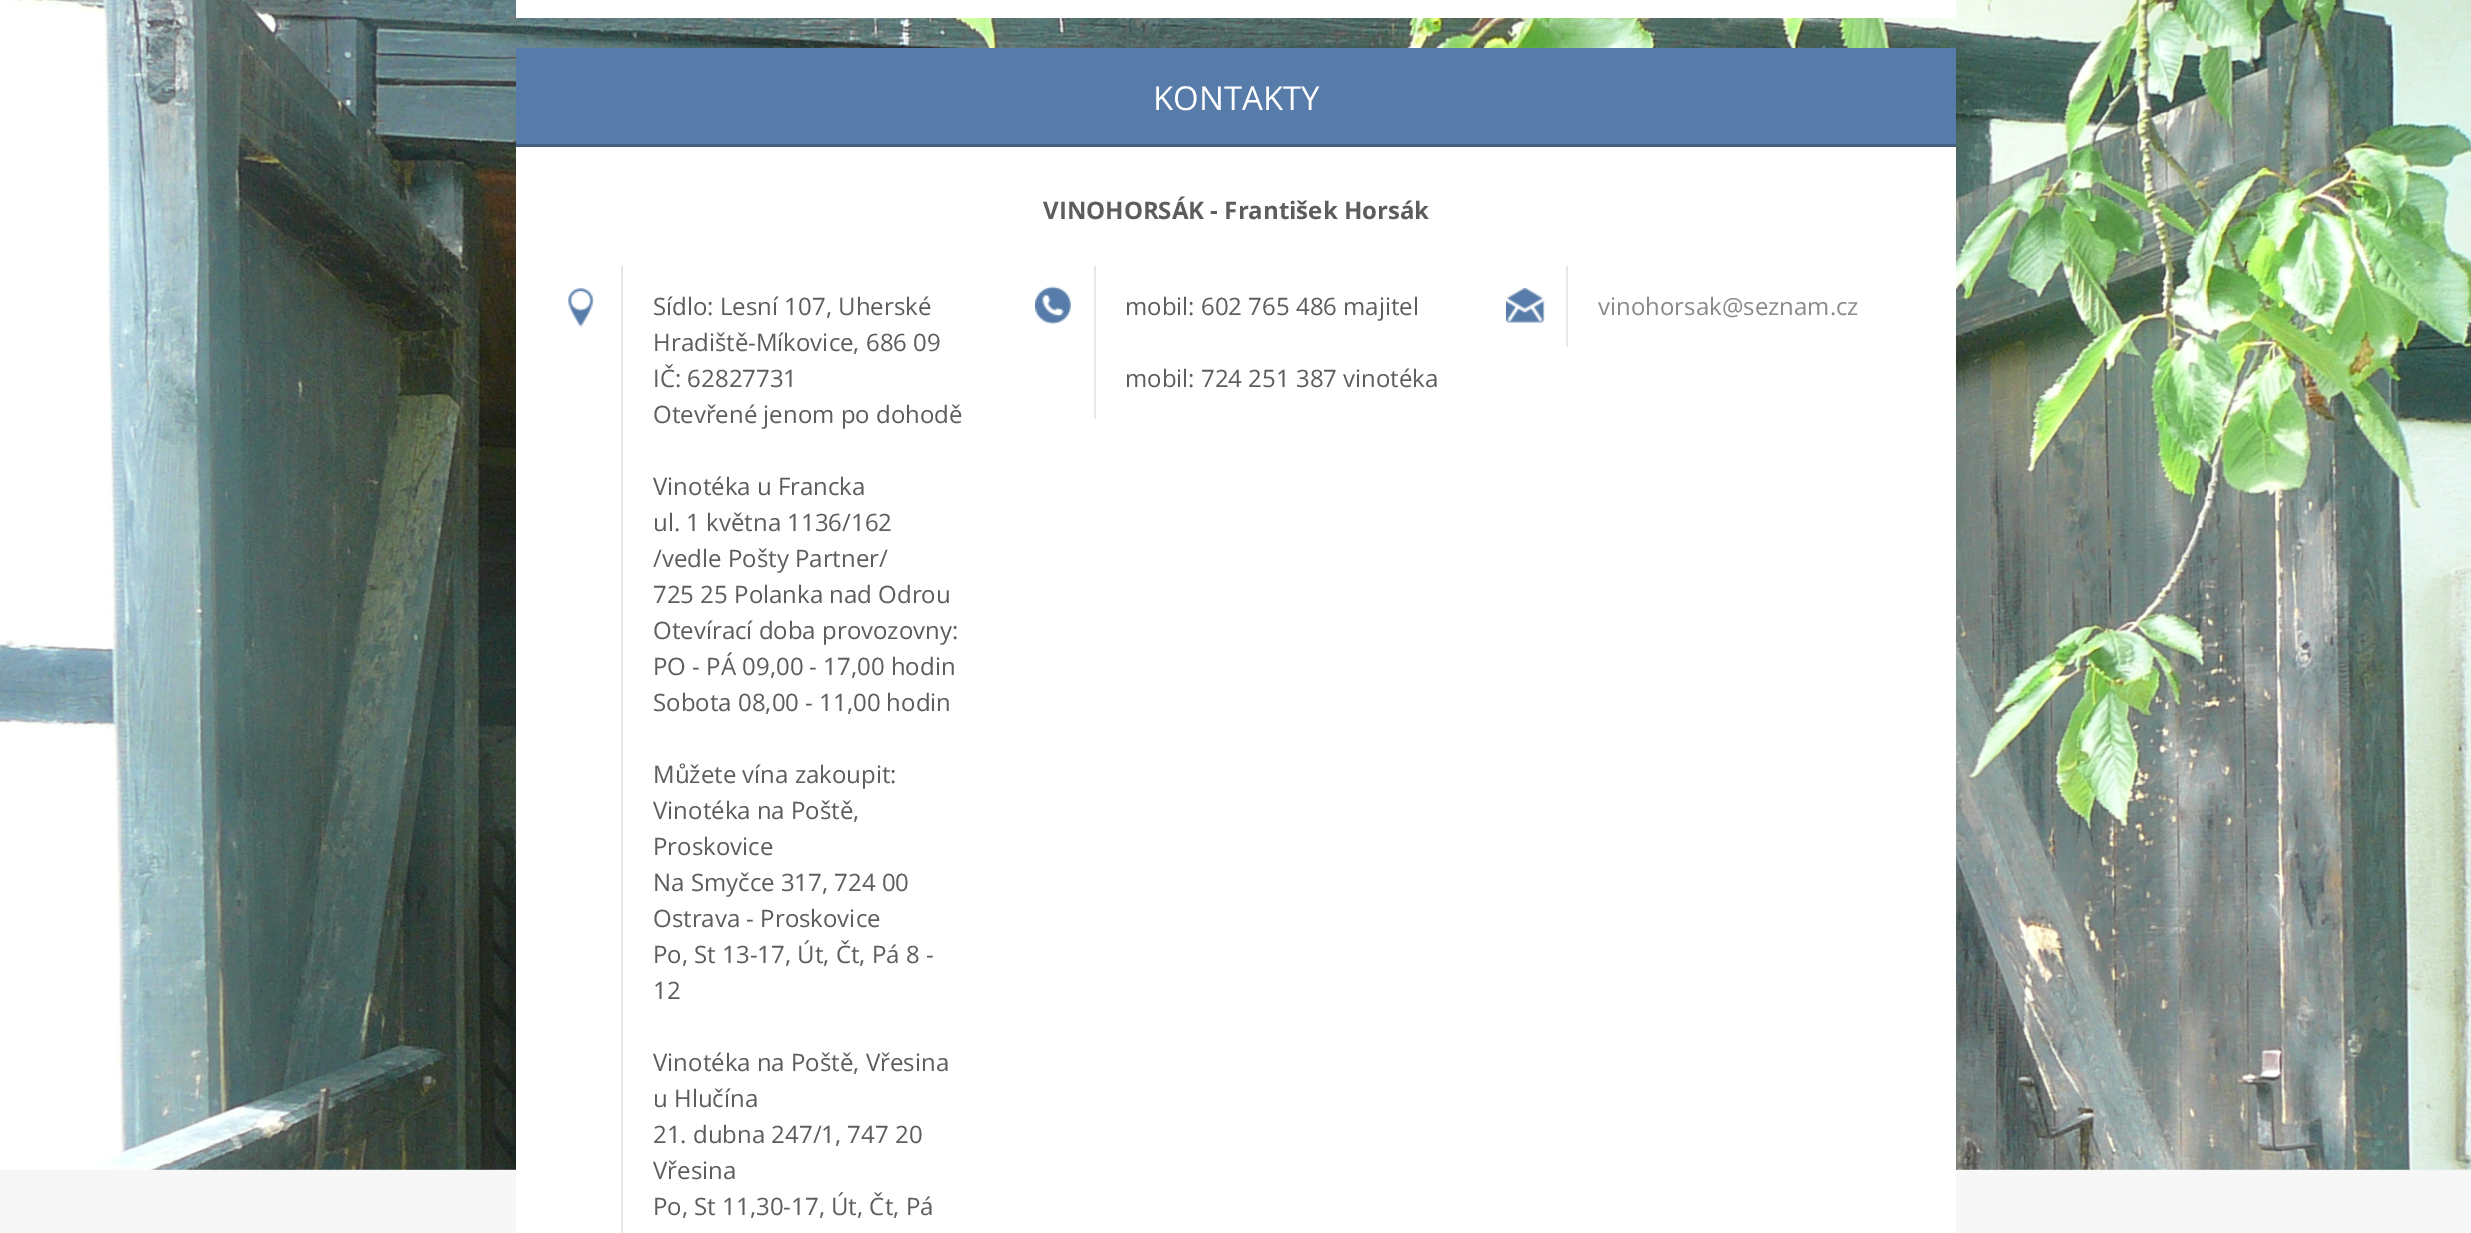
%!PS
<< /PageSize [2471 1233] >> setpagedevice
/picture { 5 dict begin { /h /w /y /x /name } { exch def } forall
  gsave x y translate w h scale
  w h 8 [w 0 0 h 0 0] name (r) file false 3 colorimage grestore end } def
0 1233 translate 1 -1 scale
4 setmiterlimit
0.969 setgray
0 0 2471 1233 rectfill
(img1.rgb) 0 0 2471 1170 picture
1 setgray
516 0 1440 18 rectfill
516 147 1440 1086 rectfill
0.341 0.486 0.663 setrgbcolor
516 48 1440 96 rectfill
0.267 0.373 0.498 setrgbcolor
516 144 1440 3 rectfill
/OpenSans-Regular [33 0 0 -33 0 0] selectfont
1 setgray
1153 110 moveto (KONTAKTY) show
/OpenSans-Bold [24 0 0 -24 0 0] selectfont
0.365 setgray
1043 219 moveto (VINOHORSÁK - František Horsák) show
(img2.rgb) 568 288 26 39 picture
0.906 setgray
621 266 2 967 rectfill
/OpenSans-Regular [24 0 0 -24 0 0] selectfont
0.365 setgray
653 315 moveto (Sídlo: Lesní 107, Uherské) show
653 351 moveto (Hradiště-Míkovice, 686 09) show
653 387 moveto (IČ: 62827731) show
653 423 moveto (Otevřené jenom po dohodě) show
653 495 moveto (Vinotéka u Francka) show
653 531 moveto (ul. 1 května 1136/162) show
653 567 moveto (/vedle Pošty Partner/) show
653 603 moveto (725 25 Polanka nad Odrou) show
653 639 moveto (Otevírací doba provozovny:) show
653 675 moveto (PO - PÁ 09,00 - 17,00 hodin) show
653 711 moveto (Sobota 08,00 - 11,00 hodin) show
653 783 moveto (Můžete vína zakoupit:) show
653 819 moveto (Vinotéka na Poště,) show
653 855 moveto (Proskovice) show
653 891 moveto (Na Smyčce 317, 724 00) show
653 927 moveto (Ostrava - Proskovice) show
653 963 moveto (Po, St 13-17, Út, Čt, Pá 8 -) show
653 999 moveto (12) show
653 1071 moveto (Vinotéka na Poště, Vřesina) show
653 1107 moveto (u Hlučína) show
653 1143 moveto (21. dubna 247/1, 747 20) show
653 1179 moveto (Vřesina) show
653 1215 moveto (Po, St 11,30-17, Út, Čt, Pá) show
(img3.rgb) 1035 286 36 38 picture
0.906 setgray
1094 266 2 153 rectfill
0.365 setgray
1125 315 moveto (mobil: 602 765 486 majitel) show
1125 387 moveto (mobil: 724 251 387 vinotéka) show
(img4.rgb) 1506 288 39 35 picture
0.906 setgray
1566 266 2 81 rectfill
0.541 setgray
1598 315 moveto (vinohorsak@seznam.cz) show
showpage
